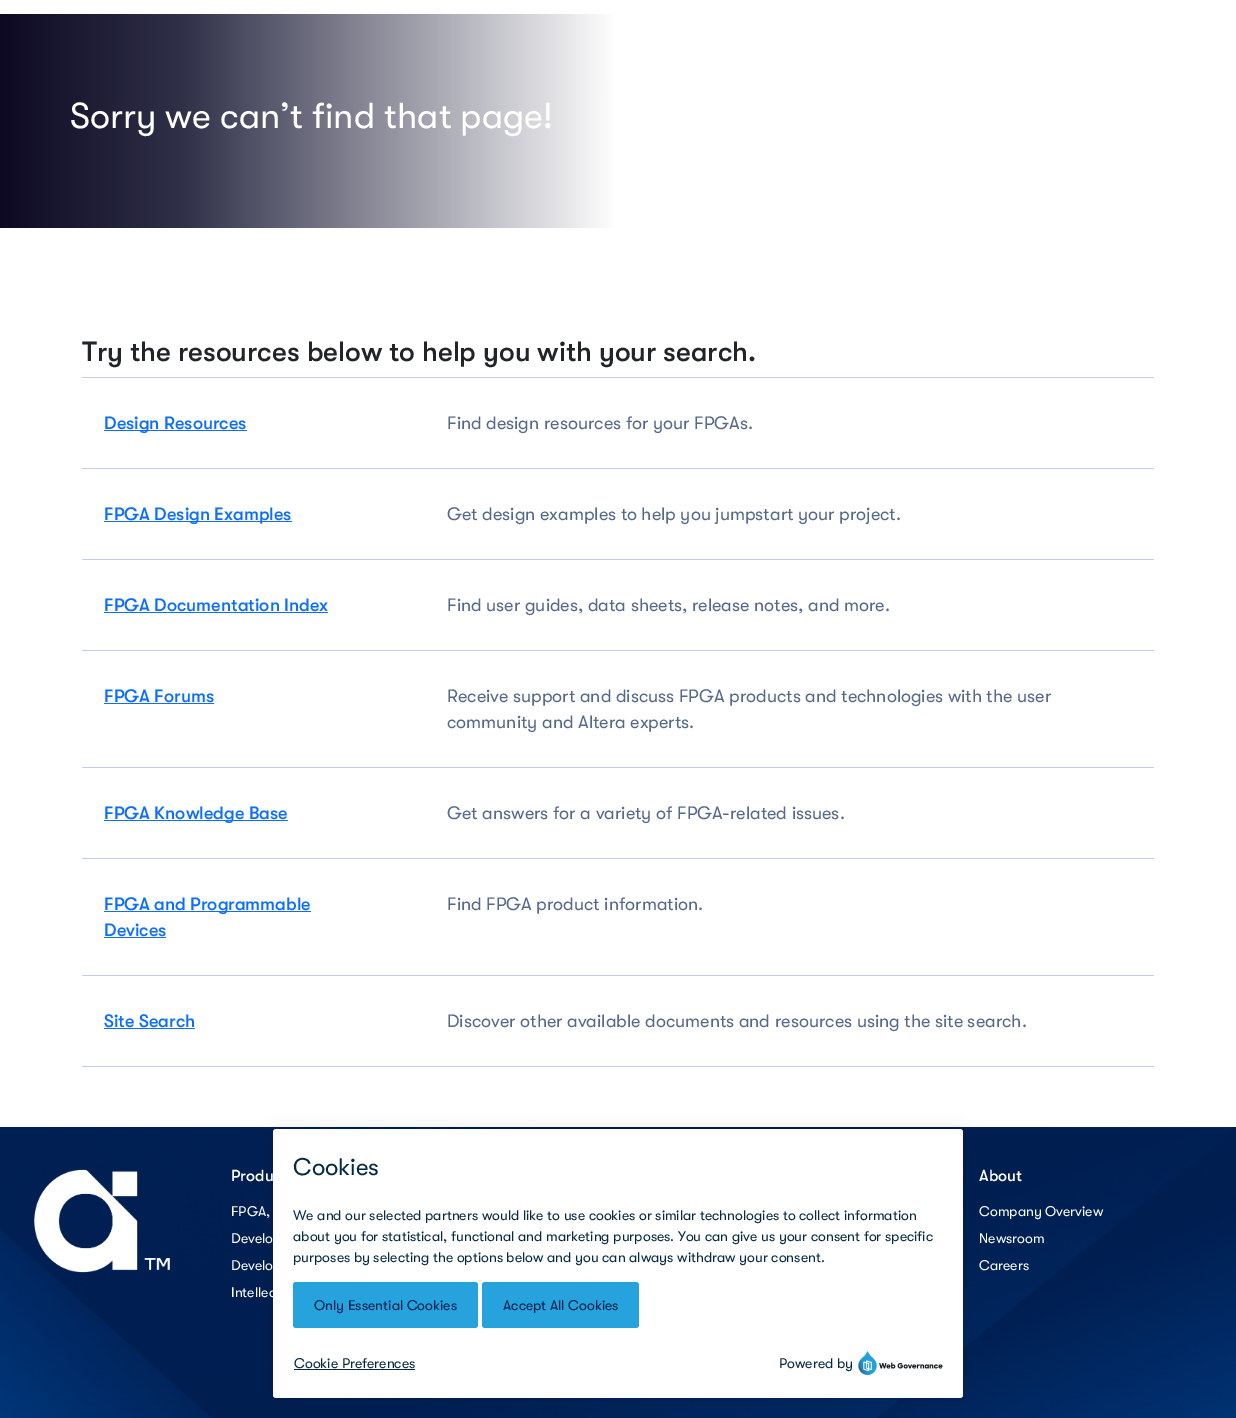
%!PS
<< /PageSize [1236 1418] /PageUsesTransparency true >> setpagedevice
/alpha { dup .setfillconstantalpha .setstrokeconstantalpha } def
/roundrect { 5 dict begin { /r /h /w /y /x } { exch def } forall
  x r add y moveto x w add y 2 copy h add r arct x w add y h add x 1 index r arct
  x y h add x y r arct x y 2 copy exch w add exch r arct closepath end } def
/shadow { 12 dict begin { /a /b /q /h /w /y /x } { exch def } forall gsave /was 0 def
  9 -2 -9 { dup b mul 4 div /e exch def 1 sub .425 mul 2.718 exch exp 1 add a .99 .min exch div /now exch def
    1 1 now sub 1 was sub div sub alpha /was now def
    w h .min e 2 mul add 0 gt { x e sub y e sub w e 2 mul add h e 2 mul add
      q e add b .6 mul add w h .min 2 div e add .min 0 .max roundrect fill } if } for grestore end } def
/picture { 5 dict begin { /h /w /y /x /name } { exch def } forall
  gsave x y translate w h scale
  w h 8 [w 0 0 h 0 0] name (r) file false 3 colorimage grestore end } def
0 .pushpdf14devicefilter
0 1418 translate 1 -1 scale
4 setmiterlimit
1 setgray
0 0 1236 1418 rectfill
gsave newpath 0 14 moveto 613 14 lineto 613 228 lineto 0 228 lineto closepath clip newpath
<< /ShadingType 2 /ColorSpace /DeviceRGB /Coords [0 121 618 121] /Extend [true true] /Function << /FunctionType 3 /Domain [0 1] /Functions [<< /FunctionType 2 /Domain [0 1] /C0 [0.051 0.035 0.133] /C1 [0.192 0.192 0.29] /N 1 >> << /FunctionType 2 /Domain [0 1] /C0 [0.192 0.192 0.29] /C1 [1 1 1] /N 1 >>] /Bounds [0.3] /Encode [0 1 0 1] >> >> shfill grestore
/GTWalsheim-Regular [36 0 0 -36 0 0] selectfont
70 128 moveto (Sorry we can’t find that page!) show
/GTWalsheim-Medium [28 0 0 -28 0 0] selectfont
0.129 0.145 0.161 setrgbcolor
82 361 moveto (Try the resources below to help you with your search.) show
0.765 0.804 0.898 setrgbcolor
82 377 1072 1 rectfill
82 468 1072 1 rectfill
0.051 0.431 0.992 setrgbcolor
104 430 143 1 rectfill
/GTWalsheim-Medium [18 0 0 -18 0 0] selectfont
104 429 moveto (Design Resources) show
/GTWalsheim-Regular [18 0 0 -18 0 0] selectfont
0.333 0.412 0.541 setrgbcolor
447 429 moveto (Find design resources for your FPGAs.) show
0.765 0.804 0.898 setrgbcolor
82 559 1072 1 rectfill
0.051 0.431 0.992 setrgbcolor
104 521 188 1 rectfill
/GTWalsheim-Medium [18 0 0 -18 0 0] selectfont
104 520 moveto (FPGA Design Examples) show
/GTWalsheim-Regular [18 0 0 -18 0 0] selectfont
0.333 0.412 0.541 setrgbcolor
447 520 moveto (Get design examples to help you jumpstart your project.) show
0.765 0.804 0.898 setrgbcolor
82 650 1072 1 rectfill
/GTWalsheim-Medium [18 0 0 -18 0 0] selectfont
0.051 0.431 0.992 setrgbcolor
104 611 moveto (FPGA Documentation Index) show
104 612 224 1 rectfill
/GTWalsheim-Regular [18 0 0 -18 0 0] selectfont
0.333 0.412 0.541 setrgbcolor
447 611 moveto (Find user guides, data sheets, release notes, and more.) show
0.765 0.804 0.898 setrgbcolor
82 767 1072 1 rectfill
/GTWalsheim-Medium [18 0 0 -18 0 0] selectfont
0.051 0.431 0.992 setrgbcolor
104 702 moveto (FPGA Forums) show
104 703 110 1 rectfill
/GTWalsheim-Regular [18 0 0 -18 0 0] selectfont
0.333 0.412 0.541 setrgbcolor
447 702 moveto (Receive support and discuss FPGA products and technologies with the user) show
447 728 moveto (community and Altera experts.) show
0.765 0.804 0.898 setrgbcolor
82 858 1072 1 rectfill
0.051 0.431 0.992 setrgbcolor
104 820 184 1 rectfill
/GTWalsheim-Medium [18 0 0 -18 0 0] selectfont
104 819 moveto (FPGA Knowledge Base) show
/GTWalsheim-Regular [18 0 0 -18 0 0] selectfont
0.333 0.412 0.541 setrgbcolor
447 819 moveto (Get answers for a variety of FPGA-related issues.) show
0.765 0.804 0.898 setrgbcolor
82 975 1072 1 rectfill
0.051 0.431 0.992 setrgbcolor
104 911 207 1 rectfill
/GTWalsheim-Medium [18 0 0 -18 0 0] selectfont
104 910 moveto (FPGA and Programmable) show
104 936 moveto (Devices) show
104 937 62 1 rectfill
/GTWalsheim-Regular [18 0 0 -18 0 0] selectfont
0.333 0.412 0.541 setrgbcolor
447 910 moveto (Find FPGA product information.) show
0.765 0.804 0.898 setrgbcolor
82 1066 1072 1 rectfill
/GTWalsheim-Medium [18 0 0 -18 0 0] selectfont
0.051 0.431 0.992 setrgbcolor
104 1027 moveto (Site Search) show
104 1028 91 1 rectfill
/GTWalsheim-Regular [18 0 0 -18 0 0] selectfont
0.333 0.412 0.541 setrgbcolor
447 1027 moveto (Discover other available documents and resources using the site search.) show
(img1.rgb) 0 1127 1236 291 picture
(img2.rgb) 34 1169 136 104 picture
/GTWalsheim-Medium [16 0 0 -16 0 0] selectfont
1 setgray
231 1181 moveto (Produ) show
/GTWalsheim-Regular [14 0 0 -14 0 0] selectfont
231 1216 moveto (FPGA,) show
231 1243 moveto (Develo) show
231 1270 moveto (Develo) show
231 1297 moveto (Intellec) show
/GTWalsheim-Medium [16 0 0 -16 0 0] selectfont
979 1181 moveto (About) show
/GTWalsheim-Regular [14 0 0 -14 0 0] selectfont
979 1216 moveto (Company Overview) show
979 1243 moveto (Newsroom) show
979 1270 moveto (Careers) show
0 setgray
273 1129 690 269 3 7.5 0.1 shadow
1 setgray
273 1129 690 269 3 roundrect fill
/GTWalsheim-Regular [24 0 0 -24 0 0] selectfont
0.02 0.161 0.259 setrgbcolor
293 1175 moveto (Cookies) show
/GTWalsheim-Regular [14 0 0 -14 0 0] selectfont
293 1220 moveto (We and our selected partners would like to use cookies or similar technologies to collect information) show
293 1241 moveto (about you for statistical, functional and marketing purposes. You can give us your consent for specific) show
293 1262 moveto (purposes by selecting the options below and you can always withdraw your consent.) show
0.149 0.639 0.867 setrgbcolor
293 1282 185 46 3 roundrect fill
0 0.118 0.314 setrgbcolor
314 1310 moveto (Only Essential Cookies) show
0.149 0.639 0.867 setrgbcolor
482 1282 157 46 3 roundrect fill
0 0.118 0.314 setrgbcolor
503 1310 moveto (Accept All Cookies) show
0.02 0.161 0.259 setrgbcolor
294 1368 moveto (Cookie Preferences) show
294 1369 121 1 rectfill
779 1368 moveto (Powered by) show
(img3.rgb) 858 1351 85 24 picture
.poppdf14devicefilter showpage
